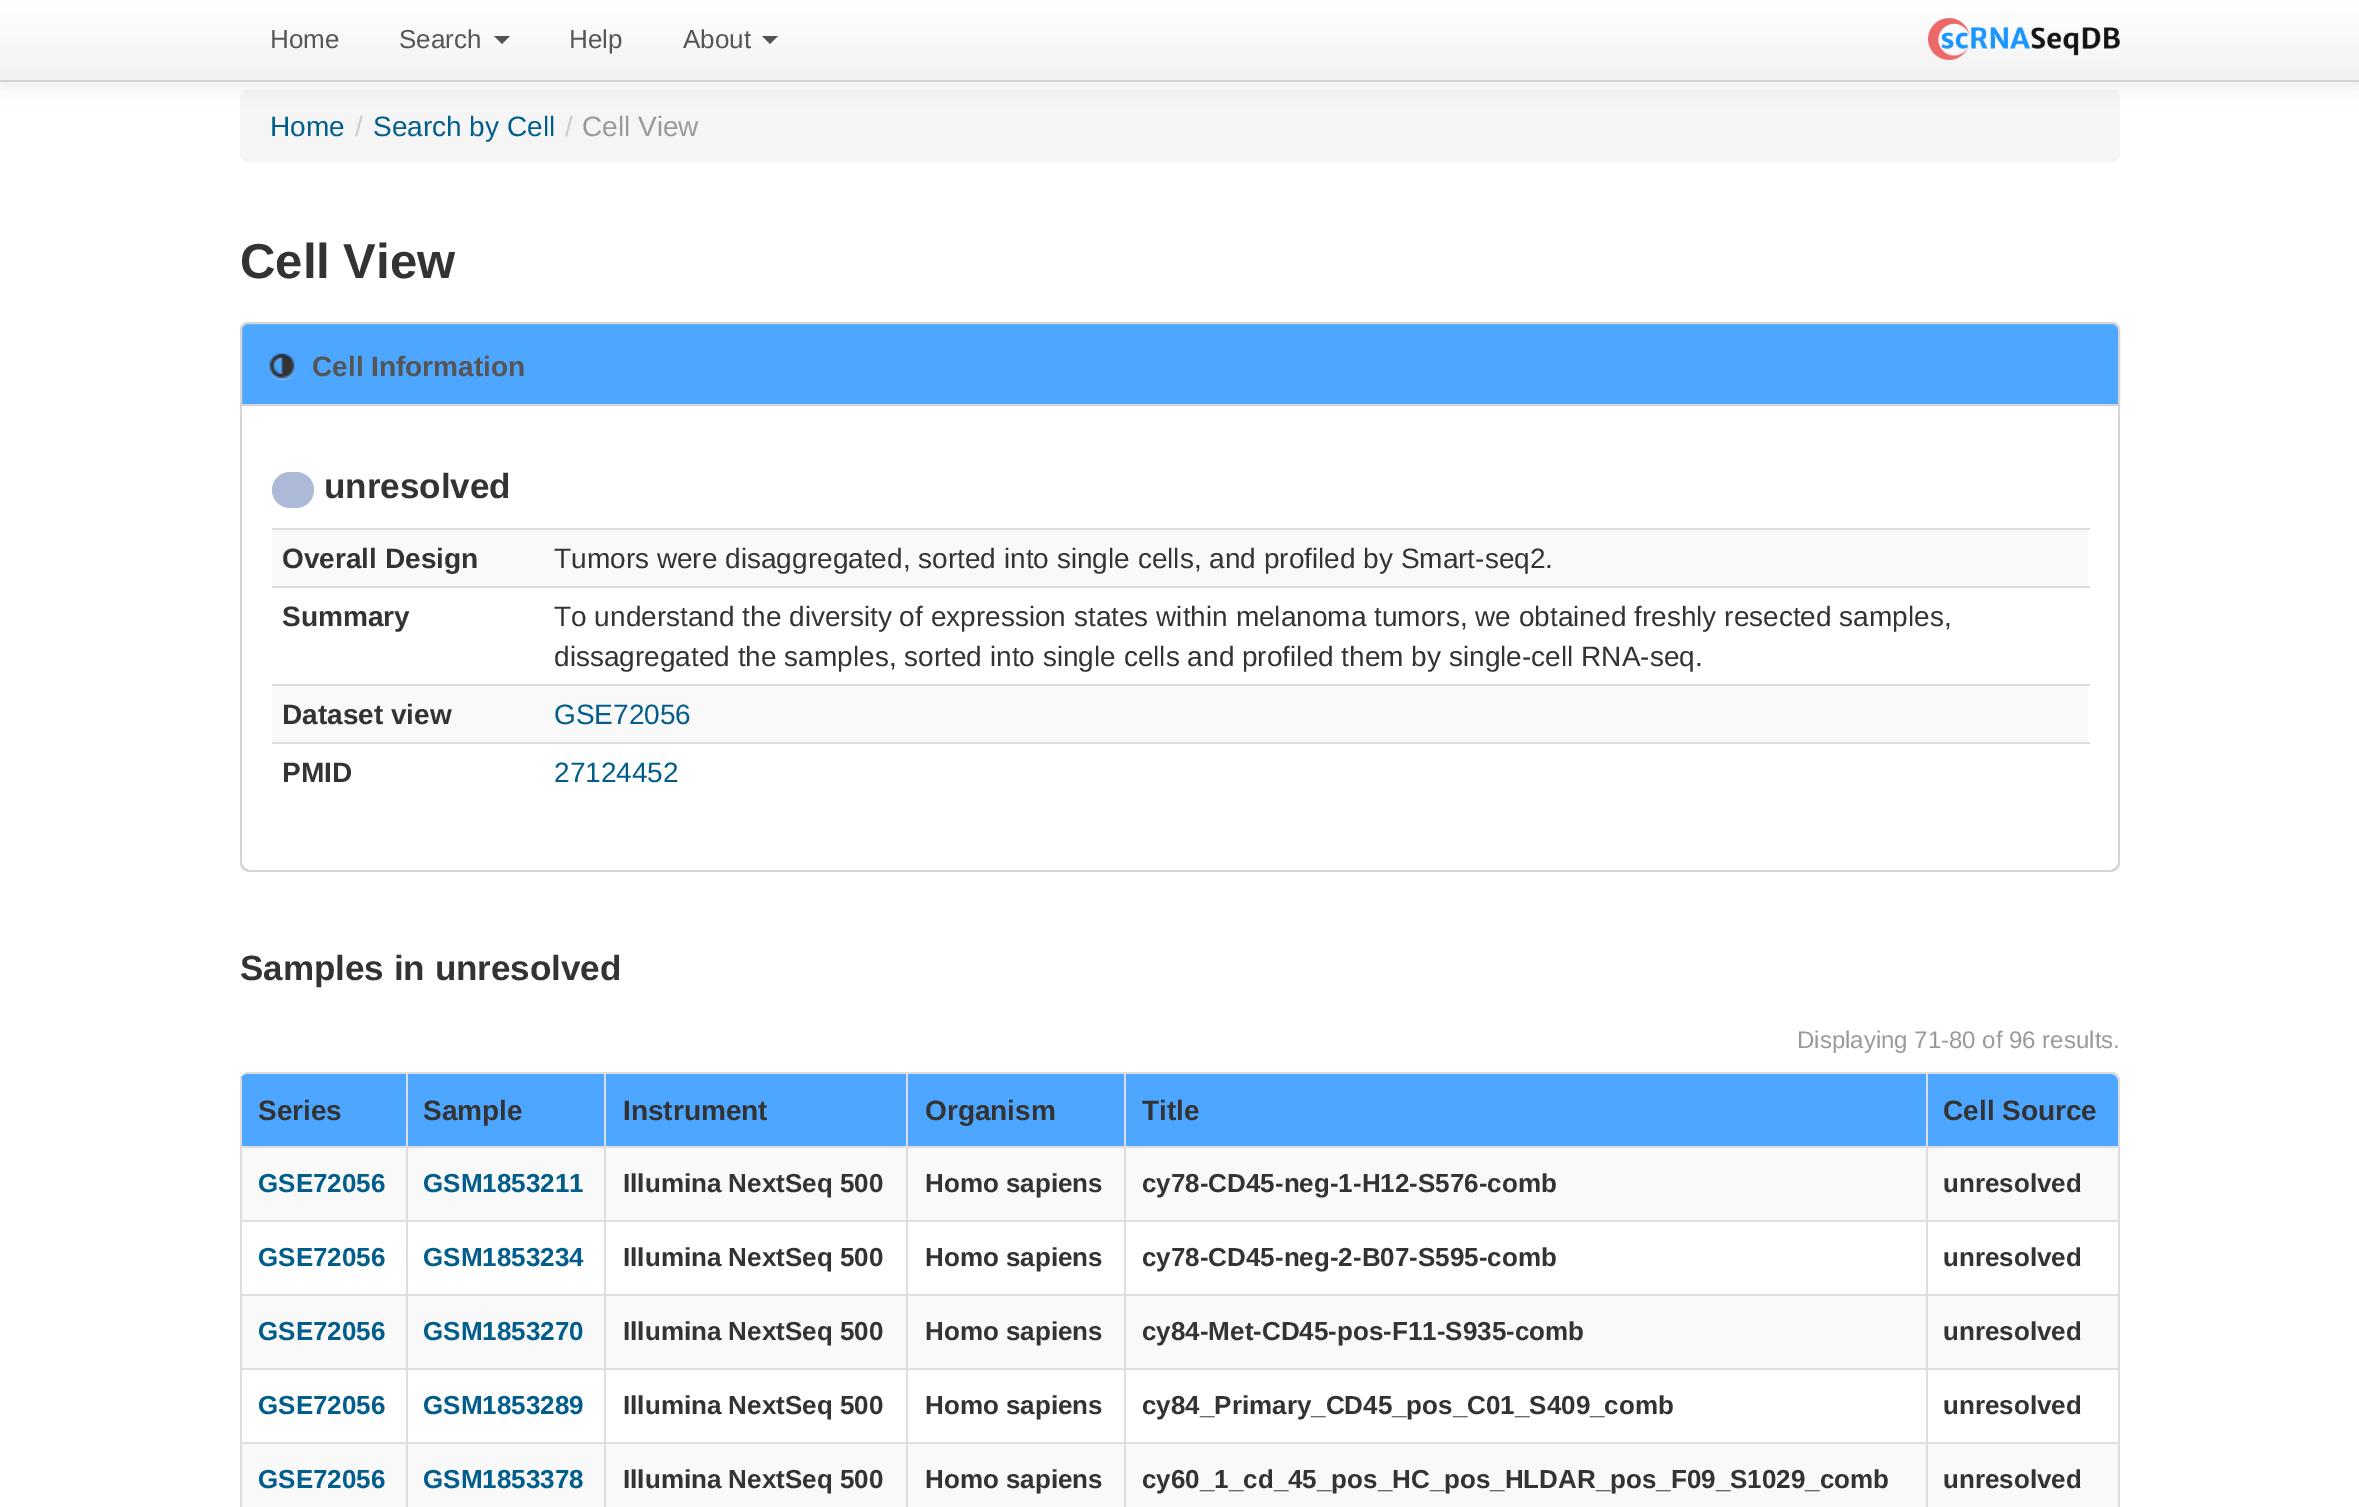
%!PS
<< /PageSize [2359 1507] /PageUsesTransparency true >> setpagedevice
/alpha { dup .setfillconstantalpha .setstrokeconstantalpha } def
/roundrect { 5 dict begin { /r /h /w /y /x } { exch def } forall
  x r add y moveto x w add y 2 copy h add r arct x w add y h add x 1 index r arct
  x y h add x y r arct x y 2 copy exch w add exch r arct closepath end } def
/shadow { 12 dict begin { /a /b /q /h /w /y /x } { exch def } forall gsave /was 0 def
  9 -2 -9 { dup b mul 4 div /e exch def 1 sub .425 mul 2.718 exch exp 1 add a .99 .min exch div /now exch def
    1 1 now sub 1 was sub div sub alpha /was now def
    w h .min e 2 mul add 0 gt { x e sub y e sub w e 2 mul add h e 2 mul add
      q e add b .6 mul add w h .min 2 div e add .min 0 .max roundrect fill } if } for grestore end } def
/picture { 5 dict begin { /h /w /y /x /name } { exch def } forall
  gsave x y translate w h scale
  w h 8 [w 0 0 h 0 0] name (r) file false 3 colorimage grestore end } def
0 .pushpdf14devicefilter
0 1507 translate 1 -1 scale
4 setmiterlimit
1 setgray
0 0 2359 1507 rectfill
0.961 setgray
240 90 1880 72 8 roundrect fill
0 setgray
0 2 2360 82 0 10 0.1 shadow
gsave newpath 0 0 moveto 2359 0 lineto 2359 80 lineto 0 80 lineto closepath clip newpath
<< /ShadingType 2 /ColorSpace /DeviceRGB /Coords [1180 0 1180 80] /Extend [true true] /Function << /FunctionType 2 /Domain [0 1] /C0 [1 1 1] /C1 [0.949 0.949 0.949] /N 1 >> >> shfill grestore
0.831 setgray
0 80 2359 2 rectfill
/LiberationSans-Regular [26 0 0 -26 0 0] selectfont
0.333 setgray
270 48 moveto (Home) show
399 48 moveto (Search) show
0.325 0.318 0.318 setrgbcolor
newpath 494 36 moveto 510 36 lineto 502 44 lineto closepath fill
0.333 setgray
569 48 moveto (Help) show
683 48 moveto (About) show
0.325 0.318 0.318 setrgbcolor
newpath 762 36 moveto 778 36 lineto 770 44 lineto closepath fill
(img1.rgb) 1928 18 192 42 picture
/LiberationSans-Regular [28 0 0 -28 0 0] selectfont
0.004 0.365 0.545 setrgbcolor
270 136 moveto (Home) show
0.8 setgray
355 136 moveto (/) show
0.004 0.365 0.545 setrgbcolor
373 136 moveto (Search by Cell) show
0.8 setgray
565 136 moveto (/) show
0.6 setgray
582 136 moveto (Cell View) show
/LiberationSans-Bold [49 0 0 -49 0 0] selectfont
0.2 setgray
240 278 moveto (Cell View) show
0.302 0.651 1 setrgbcolor
newpath 248 323 moveto 2112 323 lineto 2116 323 2119 326 2119 330 curveto 2119 405 lineto 241 405 lineto 241 330 lineto 241 326 244 323 248 323 curveto closepath gsave fill grestore
0.835 setgray
2 setlinewidth
stroke
(img2.rgb) 269 353 26 27 picture
/LiberationSans-Bold [28 0 0 -28 0 0] selectfont
0.333 setgray
312 376 moveto (Cell Information) show
0.835 setgray
newpath 240 406 moveto 2120 406 lineto 2120 862 lineto 2120 868 2116 872 2110 872 curveto 250 872 lineto 244 872 240 868 240 862 curveto closepath 242 406 moveto 2118 406 lineto 2118 862 lineto 2118 866 2114 870 2110 870 curveto 250 870 lineto 246 870 242 866 242 862 curveto closepath eofill
0.675 0.729 0.847 setrgbcolor
272 472 42 36 18 roundrect fill
/LiberationSans-Bold [35 0 0 -35 0 0] selectfont
0.2 setgray
324 498 moveto (unresolved) show
0.976 setgray
272 530 1816 56 rectfill
/LiberationSans-Bold [28 0 0 -28 0 0] selectfont
0.2 setgray
282 568 moveto (Overall Design) show
0.867 setgray
272 528 1818 2 rectfill
/LiberationSans-Regular [28 0 0 -28 0 0] selectfont
0.2 setgray
554 568 moveto (Tumors were disaggregated, sorted into single cells, and profiled by Smart-seq2.) show
/LiberationSans-Bold [28 0 0 -28 0 0] selectfont
282 626 moveto (Summary) show
0.867 setgray
272 586 1818 2 rectfill
/LiberationSans-Regular [28 0 0 -28 0 0] selectfont
0.2 setgray
554 626 moveto (To understand the diversity of expression states within melanoma tumors, we obtained freshly resected samples,) show
554 666 moveto (dissagregated the samples, sorted into single cells and profiled them by single-cell RNA-seq.) show
0.976 setgray
272 686 1816 56 rectfill
/LiberationSans-Bold [28 0 0 -28 0 0] selectfont
0.2 setgray
282 724 moveto (Dataset view) show
0.867 setgray
272 684 1818 2 rectfill
/LiberationSans-Regular [28 0 0 -28 0 0] selectfont
0.004 0.365 0.545 setrgbcolor
554 724 moveto (GSE72056) show
/LiberationSans-Bold [28 0 0 -28 0 0] selectfont
0.2 setgray
282 782 moveto (PMID) show
0.867 setgray
272 742 1818 2 rectfill
/LiberationSans-Regular [28 0 0 -28 0 0] selectfont
0.004 0.365 0.545 setrgbcolor
554 782 moveto (27124452) show
/LiberationSans-Bold [35 0 0 -35 0 0] selectfont
0.2 setgray
240 980 moveto (Samples in unresolved) show
/LiberationSans-Regular [24 0 0 -24 0 0] selectfont
0.6 setgray
1797 1048 moveto (Displaying 71-80 of 96 results.) show
0.867 setgray
newpath 248 1072 moveto 2112 1072 lineto 2116 1072 2120 1076 2120 1080 curveto 2120 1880 lineto 2120 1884 2116 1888 2112 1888 curveto 248 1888 lineto 244 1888 240 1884 240 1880 curveto 240 1080 lineto 240 1076 244 1072 248 1072 curveto closepath 248 1074 moveto 2112 1074 lineto 2115 1074 2118 1077 2118 1080 curveto 2118 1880 lineto 2118 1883 2115 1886 2112 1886 curveto 248 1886 lineto 244 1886 240 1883 240 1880 curveto 240 1080 lineto 240 1077 244 1074 248 1074 curveto closepath eofill
0.302 0.651 1 setrgbcolor
newpath 248 1074 moveto 406 1074 lineto 406 1146 lineto 240 1146 lineto 240 1082 lineto 240 1077.5 243.5 1074 248 1074 curveto closepath fill
0.867 setgray
240 1078 2 68 rectfill
/LiberationSans-Bold [28 0 0 -28 0 0] selectfont
0.2 setgray
258 1120 moveto (Series) show
0.302 0.651 1 setrgbcolor
408 1074 196 72 rectfill
0.867 setgray
406 1074 2 72 rectfill
0.2 setgray
423 1120 moveto (Sample) show
0.302 0.651 1 setrgbcolor
606 1074 300 72 rectfill
0.867 setgray
604 1074 2 72 rectfill
0.2 setgray
623 1120 moveto (Instrument) show
0.302 0.651 1 setrgbcolor
908 1074 216 72 rectfill
0.867 setgray
906 1074 2 72 rectfill
0.2 setgray
925 1120 moveto (Organism) show
0.302 0.651 1 setrgbcolor
1126 1074 800 72 rectfill
0.867 setgray
1124 1074 2 72 rectfill
0.2 setgray
1142 1120 moveto (Title) show
0.302 0.651 1 setrgbcolor
newpath 1926 1074 moveto 2110 1074 lineto 2114.5 1074 2118 1077.5 2118 1082 curveto 2118 1146 lineto 1926 1146 lineto closepath fill
0.867 setgray
1926 1074 2 72 rectfill
0.2 setgray
1943 1120 moveto (Cell Source) show
0.976 setgray
242 1148 164 72 rectfill
0.867 setgray
240 1146 1878 2 rectfill
240 1146 2 74 rectfill
/LiberationSans-Bold [26 0 0 -26 0 0] selectfont
0.004 0.365 0.545 setrgbcolor
258 1192 moveto (GSE72056) show
0.976 setgray
408 1148 196 72 rectfill
0.867 setgray
406 1146 2 74 rectfill
0.004 0.365 0.545 setrgbcolor
423 1192 moveto (GSM1853211) show
0.976 setgray
606 1148 300 72 rectfill
0.867 setgray
604 1146 2 74 rectfill
0.2 setgray
623 1192 moveto (Illumina NextSeq 500) show
0.976 setgray
908 1148 216 72 rectfill
0.867 setgray
906 1146 2 74 rectfill
0.2 setgray
925 1192 moveto (Homo sapiens) show
0.976 setgray
1126 1148 800 72 rectfill
0.867 setgray
1124 1146 2 74 rectfill
0.2 setgray
1142 1192 moveto (cy78-CD45-neg-1-H12-S576-comb) show
0.976 setgray
1928 1148 190 72 rectfill
0.867 setgray
1926 1146 2 74 rectfill
0.2 setgray
1943 1192 moveto (unresolved) show
0.867 setgray
240 1220 1878 2 rectfill
240 1220 2 74 rectfill
0.004 0.365 0.545 setrgbcolor
258 1266 moveto (GSE72056) show
0.867 setgray
406 1220 2 74 rectfill
0.004 0.365 0.545 setrgbcolor
423 1266 moveto (GSM1853234) show
0.867 setgray
604 1220 2 74 rectfill
0.2 setgray
623 1266 moveto (Illumina NextSeq 500) show
0.867 setgray
906 1220 2 74 rectfill
0.2 setgray
925 1266 moveto (Homo sapiens) show
0.867 setgray
1124 1220 2 74 rectfill
0.2 setgray
1142 1266 moveto (cy78-CD45-neg-2-B07-S595-comb) show
0.867 setgray
1926 1220 2 74 rectfill
0.2 setgray
1943 1266 moveto (unresolved) show
0.976 setgray
242 1296 164 72 rectfill
0.867 setgray
240 1294 1878 2 rectfill
240 1294 2 74 rectfill
0.004 0.365 0.545 setrgbcolor
258 1340 moveto (GSE72056) show
0.976 setgray
408 1296 196 72 rectfill
0.867 setgray
406 1294 2 74 rectfill
0.004 0.365 0.545 setrgbcolor
423 1340 moveto (GSM1853270) show
0.976 setgray
606 1296 300 72 rectfill
0.867 setgray
604 1294 2 74 rectfill
0.2 setgray
623 1340 moveto (Illumina NextSeq 500) show
0.976 setgray
908 1296 216 72 rectfill
0.867 setgray
906 1294 2 74 rectfill
0.2 setgray
925 1340 moveto (Homo sapiens) show
0.976 setgray
1126 1296 800 72 rectfill
0.867 setgray
1124 1294 2 74 rectfill
0.2 setgray
1142 1340 moveto (cy84-Met-CD45-pos-F11-S935-comb) show
0.976 setgray
1928 1296 190 72 rectfill
0.867 setgray
1926 1294 2 74 rectfill
0.2 setgray
1943 1340 moveto (unresolved) show
0.867 setgray
240 1368 1878 2 rectfill
240 1368 2 74 rectfill
0.004 0.365 0.545 setrgbcolor
258 1414 moveto (GSE72056) show
0.867 setgray
406 1368 2 74 rectfill
0.004 0.365 0.545 setrgbcolor
423 1414 moveto (GSM1853289) show
0.867 setgray
604 1368 2 74 rectfill
0.2 setgray
623 1414 moveto (Illumina NextSeq 500) show
0.867 setgray
906 1368 2 74 rectfill
0.2 setgray
925 1414 moveto (Homo sapiens) show
0.867 setgray
1124 1368 2 74 rectfill
0.2 setgray
1142 1414 moveto (cy84_Primary_CD45_pos_C01_S409_comb) show
0.867 setgray
1926 1368 2 74 rectfill
0.2 setgray
1943 1414 moveto (unresolved) show
0.976 setgray
242 1444 164 63 rectfill
0.867 setgray
240 1442 1878 2 rectfill
240 1442 2 65 rectfill
0.004 0.365 0.545 setrgbcolor
258 1488 moveto (GSE72056) show
0.976 setgray
408 1444 196 63 rectfill
0.867 setgray
406 1442 2 65 rectfill
0.004 0.365 0.545 setrgbcolor
423 1488 moveto (GSM1853378) show
0.976 setgray
606 1444 300 63 rectfill
0.867 setgray
604 1442 2 65 rectfill
0.2 setgray
623 1488 moveto (Illumina NextSeq 500) show
0.976 setgray
908 1444 216 63 rectfill
0.867 setgray
906 1442 2 65 rectfill
0.2 setgray
925 1488 moveto (Homo sapiens) show
0.976 setgray
1126 1444 800 63 rectfill
0.867 setgray
1124 1442 2 65 rectfill
0.2 setgray
1142 1488 moveto (cy60_1_cd_45_pos_HC_pos_HLDAR_pos_F09_S1029_comb) show
0.976 setgray
1928 1444 190 63 rectfill
0.867 setgray
1926 1442 2 65 rectfill
0.2 setgray
1943 1488 moveto (unresolved) show
.poppdf14devicefilter showpage
